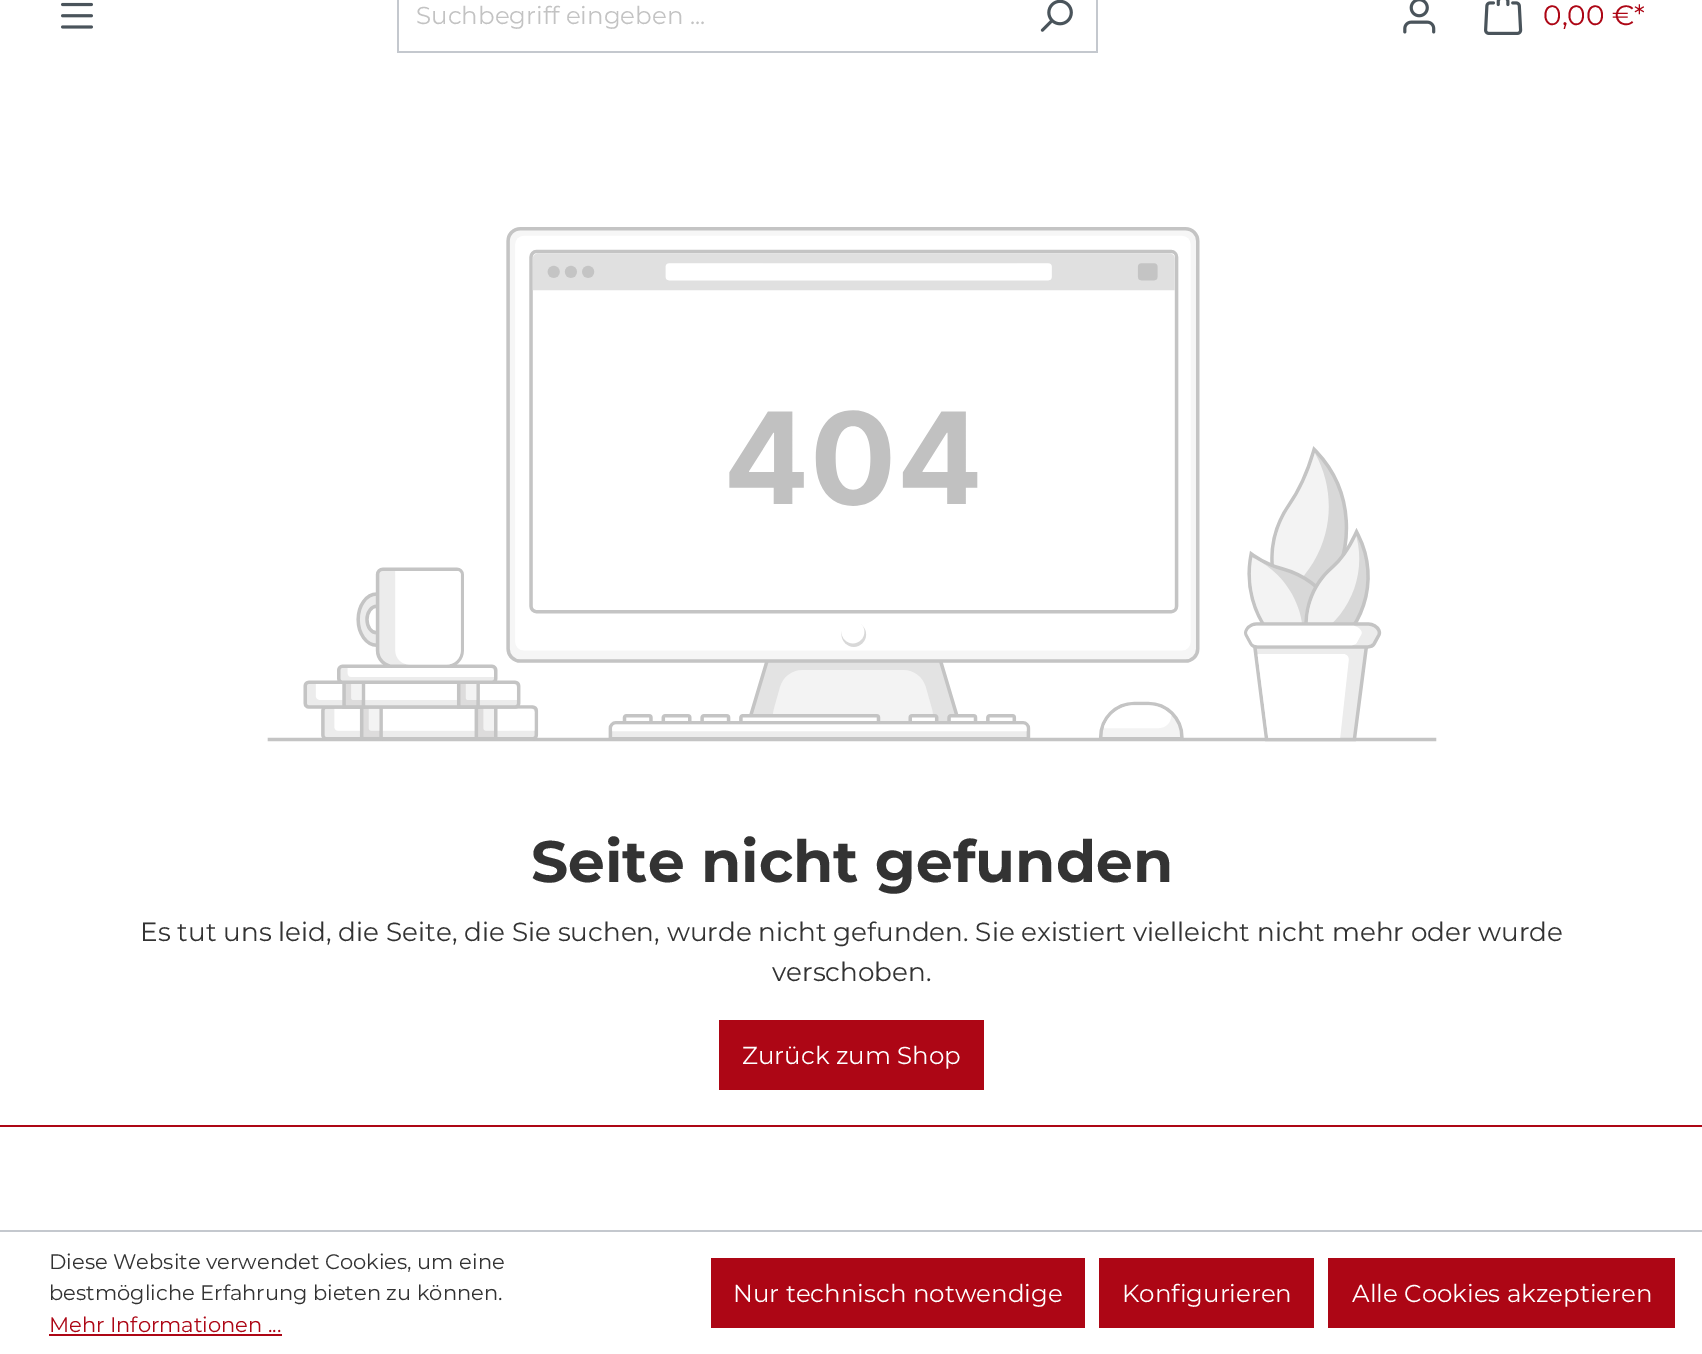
%!PS
<< /PageSize [1702 1354] >> setpagedevice
/picture { 5 dict begin { /h /w /y /x /name } { exch def } forall
  gsave x y translate w h scale
  w h 8 [w 0 0 h 0 0] name (r) file false 3 colorimage grestore end } def
0 1354 translate 1 -1 scale
4 setmiterlimit
1 setgray
0 0 1702 1354 rectfill
(img1.rgb) 61 2 32 27 picture
0.769 0.784 0.808 setrgbcolor
397 51 620 2 rectfill
397 0 2 53 rectfill
/Montserrat-Regular [24.5 0 0 -24.5 0 0] selectfont
0.765 setgray
416 24 moveto (Suchbegriff eingeben ...) show
0.769 0.784 0.808 setrgbcolor
1096 0 2 53 rectfill
1015 51 82 2 rectfill
(img2.rgb) 1040 0 33 32 picture
(img3.rgb) 1403 0 33 34 picture
(img4.rgb) 1484 0 39 35 picture
/Montserrat-Regular [28 0 0 -28 0 0] selectfont
0.678 0.024 0.082 setrgbcolor
1543 25 moveto (0,00 €*) show
(img5.rgb) 267 227 1170 515 picture
/Montserrat-Bold [58.25 0 0 -58.25 0 0] selectfont
0.2 setgray
531 882 moveto (Seite nicht gefunden) show
/Montserrat-Regular [26.25 0 0 -26.25 0 0] selectfont
140 941 moveto (Es tut uns leid, die Seite, die Sie suchen, wurde nicht gefunden. Sie existiert vielleicht nicht mehr oder wurde) show
772 981 moveto (verschoben.) show
0.678 0.024 0.082 setrgbcolor
719 1020 265 70 rectfill
/Montserrat-Regular [24.5 0 0 -24.5 0 0] selectfont
1 setgray
742 1064 moveto (Zurück zum Shop) show
0.678 0.024 0.082 setrgbcolor
0 1125 1702 2 rectfill
0.769 0.784 0.808 setrgbcolor
0 1230 1702 2 rectfill
/Montserrat-Regular [21 0 0 -21 0 0] selectfont
0.2 setgray
49 1269 moveto (Diese Website verwendet Cookies, um eine) show
49 1300 moveto (bestmögliche Erfahrung bieten zu können.) show
0.678 0.024 0.082 setrgbcolor
49 1332 moveto (Mehr Informationen ...) show
49 1334 233 2 rectfill
711 1258 374 70 rectfill
/Montserrat-Regular [24.5 0 0 -24.5 0 0] selectfont
1 setgray
733 1302 moveto (Nur technisch notwendige) show
0.678 0.024 0.082 setrgbcolor
1099 1258 215 70 rectfill
1 setgray
1122 1302 moveto (Konfigurieren) show
0.678 0.024 0.082 setrgbcolor
1328 1258 347 70 rectfill
1 setgray
1352 1302 moveto (Alle Cookies akzeptieren) show
showpage
